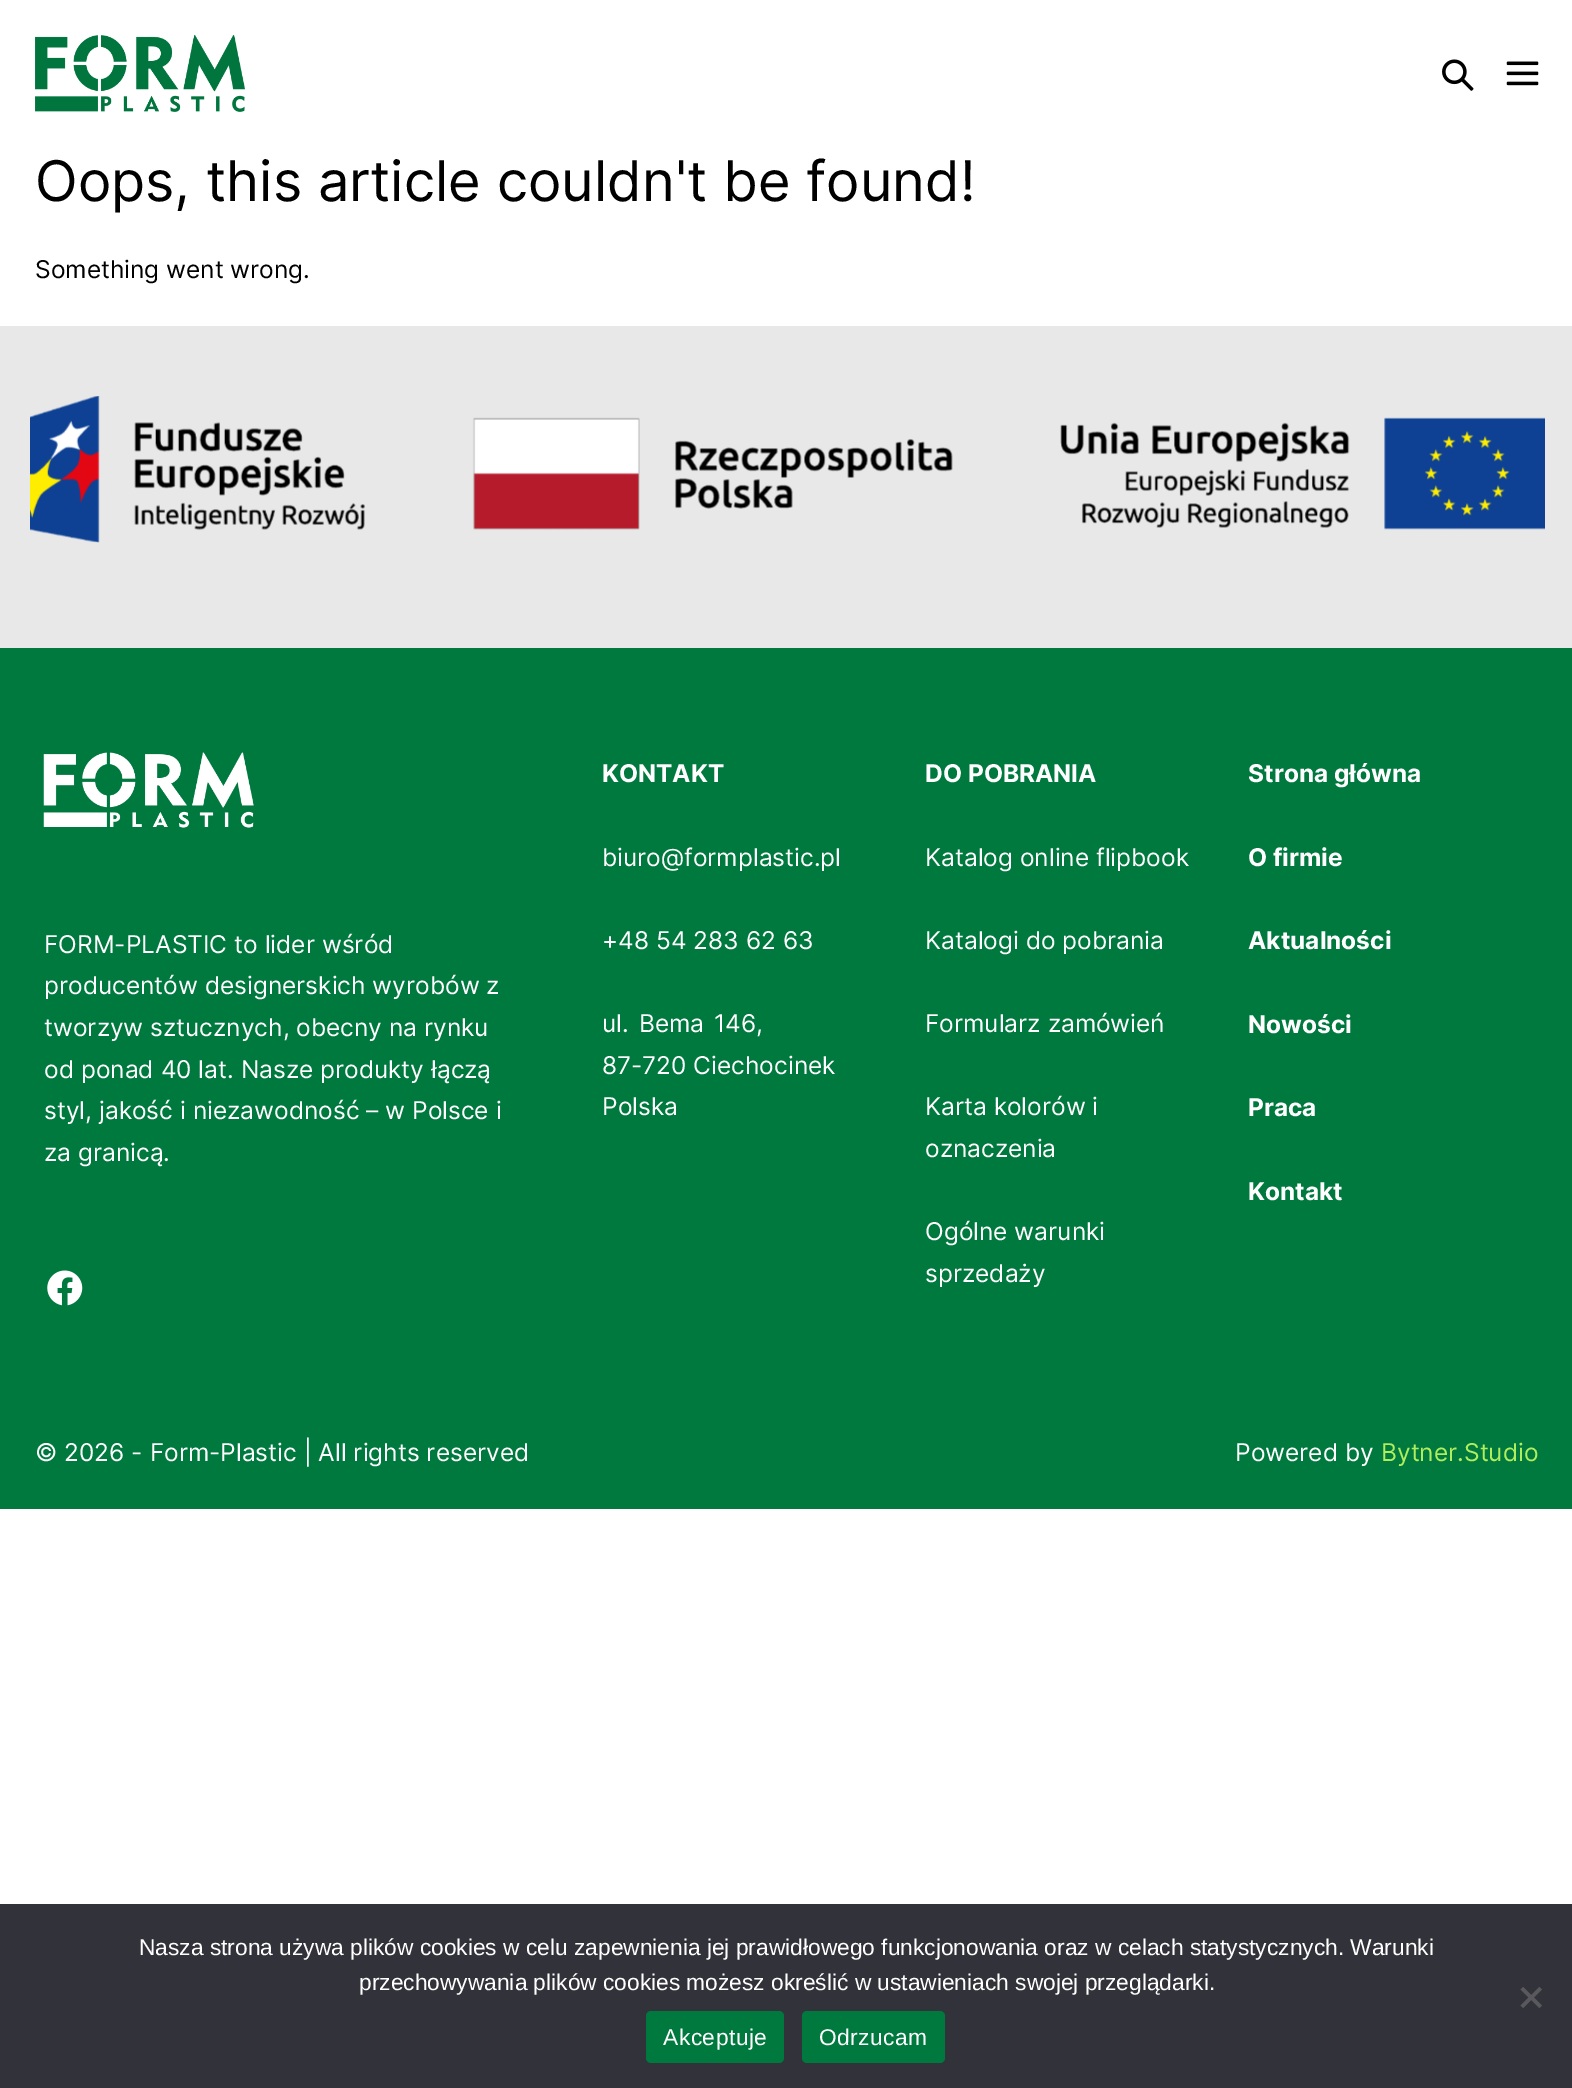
%!PS
<< /PageSize [1572 2088] >> setpagedevice
/roundrect { 5 dict begin { /r /h /w /y /x } { exch def } forall
  x r add y moveto x w add y 2 copy h add r arct x w add y h add x 1 index r arct
  x y h add x y r arct x y 2 copy exch w add exch r arct closepath end } def
/picture { 5 dict begin { /h /w /y /x /name } { exch def } forall
  gsave x y translate w h scale
  w h 8 [w 0 0 h 0 0] name (r) file false 3 colorimage grestore end } def
0 2088 translate 1 -1 scale
4 setmiterlimit
1 setgray
0 0 1572 2088 rectfill
(img1.rgb) 35 35 210 77 picture
(img2.rgb) 1442 59 32 32 picture
(img3.rgb) 1506 61 33 25 picture
/Inter-Regular [56 0 0 -56 0 0] selectfont
0 setgray
35 201 moveto (Oops, this article couldn't be found!) show
/Inter-Regular [24.5 0 0 -24.5 0 0] selectfont
35 278 moveto (Something went wrong.) show
0 0.475 0.243 setrgbcolor
0 648 1572 861 rectfill
0.91 setgray
0 326 1572 322 rectfill
(img4.rgb) 30 396 1515 147 picture
(img5.rgb) 43 752 211 76 picture
1 setgray
44 953 moveto (FORM-PLASTIC to lider wśród) show
44 994 moveto (producentów designerskich wyrobów z) show
44 1036 moveto (tworzyw sztucznych, obecny na rynku) show
44 1078 moveto (od ponad 40 lat. Nasze produkty łączą) show
44 1119 moveto (styl, jakość i niezawodność – w Polsce i) show
44 1161 moveto (za granicą.) show
(img6.rgb) 47 1270 36 36 picture
/Inter-Bold [24.5 0 0 -24.5 0 0] selectfont
602 782 moveto (KONTAKT) show
/Inter-Regular [24.5 0 0 -24.5 0 0] selectfont
602 866 moveto (biuro@formplastic.pl) show
602 949 moveto (+48 54 283 62 63) show
602 1032 moveto 3 0 32 (ul. Bema 146,) widthshow
602 1074 moveto (87-720 Ciechocinek) show
602 1115 moveto (Polska) show
/Inter-Bold [24.5 0 0 -24.5 0 0] selectfont
925 782 moveto (DO POBRANIA) show
/Inter-Regular [24.5 0 0 -24.5 0 0] selectfont
925 866 moveto (Katalog online flipbook) show
925 949 moveto (Katalogi do pobrania) show
925 1032 moveto (Formularz zamówień) show
925 1115 moveto (Karta kolorów i) show
925 1157 moveto (oznaczenia) show
925 1240 moveto (Ogólne warunki) show
925 1282 moveto (sprzedaży) show
/Inter-Bold [24.5 0 0 -24.5 0 0] selectfont
1248 782 moveto (Strona główna) show
1248 866 moveto (O firmie) show
1248 949 moveto (Aktualności) show
1248 1033 moveto (Nowości) show
1248 1116 moveto (Praca) show
1248 1200 moveto (Kontakt) show
/Inter-Regular [24.5 0 0 -24.5 0 0] selectfont
35 1461 moveto (© 2026 - Form-Plastic | All rights reserved) show
1235 1461 moveto (Powered by) show
0.69 0.933 0.369 setrgbcolor
1381 1461 moveto (Bytner.Studio) show
0.196 0.196 0.227 setrgbcolor
0 1904 1572 184 rectfill
/LiberationSans-Regular [22.75 0 0 -22.75 0 0] selectfont
1 setgray
139 1955 moveto (Nasza strona używa plików cookies w celu zapewnienia jej prawidłowego funkcjonowania oraz w celach statystycznych. Warunki) show
359 1990 moveto (przechowywania plików cookies możesz określić w ustawieniach swojej przeglądarki.) show
0.349 0.349 0.365 setrgbcolor
newpath 1539.5 1987 moveto 1542 1989.5 lineto 1523 2008 lineto 1520.5 2005.5 lineto closepath fill
newpath 1520.5 1989.5 moveto 1523 1987 lineto 1542 2005.5 lineto 1539.5 2008 lineto closepath fill
0 0.475 0.243 setrgbcolor
646 2011 138 52 5 roundrect fill
1 setgray
663 2045 moveto 0.5 0 (Akceptuje) ashow
0 0.475 0.243 setrgbcolor
802 2011 143 52 5 roundrect fill
1 setgray
819 2045 moveto 0.5 0 (Odrzucam) ashow
showpage
